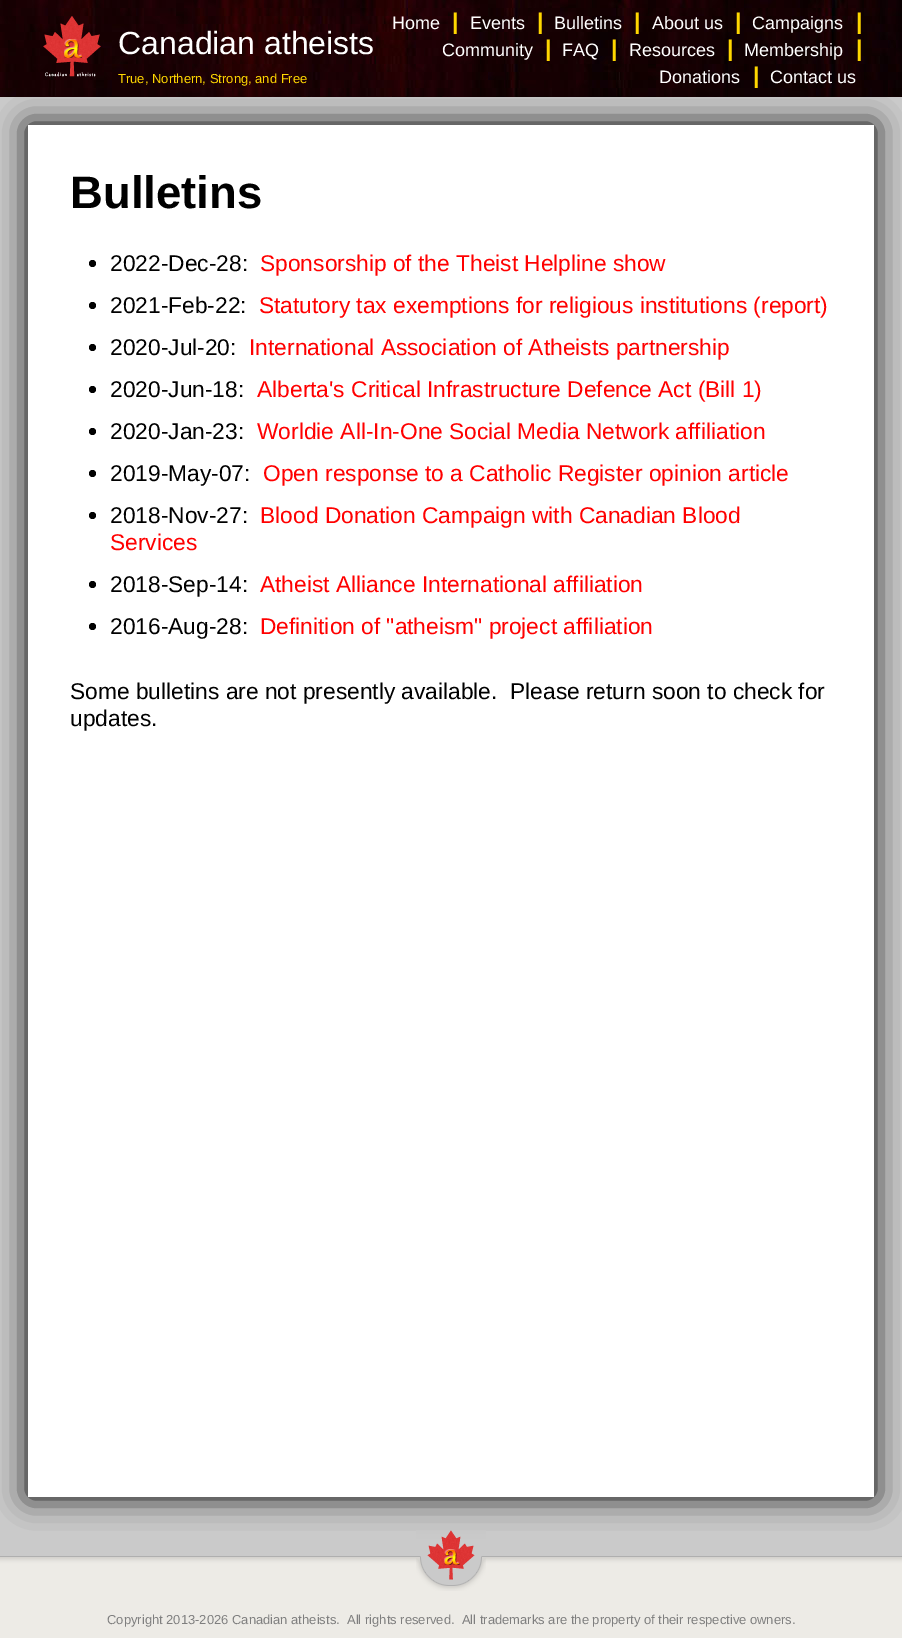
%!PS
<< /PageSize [902 1638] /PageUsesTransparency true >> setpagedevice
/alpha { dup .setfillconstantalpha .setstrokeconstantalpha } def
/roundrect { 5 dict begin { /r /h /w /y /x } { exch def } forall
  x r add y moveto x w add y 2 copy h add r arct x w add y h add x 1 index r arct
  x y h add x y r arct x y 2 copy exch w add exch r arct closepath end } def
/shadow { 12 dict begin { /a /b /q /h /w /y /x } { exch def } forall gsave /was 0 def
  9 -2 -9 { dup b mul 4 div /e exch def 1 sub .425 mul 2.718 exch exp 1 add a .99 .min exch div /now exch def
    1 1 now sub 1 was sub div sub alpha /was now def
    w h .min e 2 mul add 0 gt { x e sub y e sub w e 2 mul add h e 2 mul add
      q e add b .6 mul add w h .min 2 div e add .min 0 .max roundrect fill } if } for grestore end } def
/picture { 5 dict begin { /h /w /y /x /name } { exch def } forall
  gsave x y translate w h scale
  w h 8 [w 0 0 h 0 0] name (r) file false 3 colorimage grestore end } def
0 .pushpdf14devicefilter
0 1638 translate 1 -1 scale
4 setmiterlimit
0.792 setgray
0 0 902 1638 rectfill
(img1.rgb) 0 0 902 97 picture
(img2.rgb) 43 16 58 61 picture
/LiberationSans-Regular [32 0 0 -32 0 0] selectfont
1 setgray
118 54 moveto (Canadian atheists) show
0 setgray
28 125 846 1372 0 15 1 shadow
/LiberationSans-Regular [13 0 0 -13 0 0] selectfont
1 0.843 0 setrgbcolor
118 83 moveto (True, Northern, Strong, and Free) show
/LiberationSans-Regular [18 0 0 -18 0 0] selectfont
1 setgray
392 29 moveto (Home) show
/LiberationSans-Bold [22.75 0 0 -22.75 0 0] selectfont
1 0.843 0 setrgbcolor
452 29 moveto (|) show
/LiberationSans-Regular [18 0 0 -18 0 0] selectfont
1 setgray
470 29 moveto (Events) show
/LiberationSans-Bold [22.75 0 0 -22.75 0 0] selectfont
1 0.843 0 setrgbcolor
537 29 moveto (|) show
/LiberationSans-Regular [18 0 0 -18 0 0] selectfont
1 setgray
554 29 moveto (Bulletins) show
/LiberationSans-Bold [22.75 0 0 -22.75 0 0] selectfont
1 0.843 0 setrgbcolor
634 29 moveto (|) show
/LiberationSans-Regular [18 0 0 -18 0 0] selectfont
1 setgray
652 29 moveto (About us) show
/LiberationSans-Bold [22.75 0 0 -22.75 0 0] selectfont
1 0.843 0 setrgbcolor
735 29 moveto (|) show
/LiberationSans-Regular [18 0 0 -18 0 0] selectfont
1 setgray
752 29 moveto (Campaigns) show
/LiberationSans-Bold [22.75 0 0 -22.75 0 0] selectfont
1 0.843 0 setrgbcolor
856 29 moveto (|) show
/LiberationSans-Regular [18 0 0 -18 0 0] selectfont
1 setgray
442 56 moveto (Community) show
/LiberationSans-Bold [22.75 0 0 -22.75 0 0] selectfont
1 0.843 0 setrgbcolor
545 56 moveto (|) show
/LiberationSans-Regular [18 0 0 -18 0 0] selectfont
1 setgray
562 56 moveto (FAQ) show
/LiberationSans-Bold [22.75 0 0 -22.75 0 0] selectfont
1 0.843 0 setrgbcolor
611 56 moveto (|) show
/LiberationSans-Regular [18 0 0 -18 0 0] selectfont
1 setgray
629 56 moveto (Resources) show
/LiberationSans-Bold [22.75 0 0 -22.75 0 0] selectfont
1 0.843 0 setrgbcolor
727 56 moveto (|) show
/LiberationSans-Regular [18 0 0 -18 0 0] selectfont
1 setgray
744 56 moveto (Membership) show
/LiberationSans-Bold [22.75 0 0 -22.75 0 0] selectfont
1 0.843 0 setrgbcolor
856 56 moveto (|) show
/LiberationSans-Regular [18 0 0 -18 0 0] selectfont
1 setgray
659 83 moveto (Donations) show
/LiberationSans-Bold [22.75 0 0 -22.75 0 0] selectfont
1 0.843 0 setrgbcolor
753 83 moveto (|) show
/LiberationSans-Regular [18 0 0 -18 0 0] selectfont
1 setgray
770 83 moveto (Contact us) show
28 125 846 1372 rectfill
/LiberationSans-Bold [45.5 0 0 -45.5 0 0] selectfont
0 setgray
70 208 moveto (Bulletins) show
newpath 92.5 263.5 3.5 0 360 arc closepath fill
/LiberationSans-Regular [22.75 0 0 -22.75 0 0] selectfont
110 271 moveto (2022-Dec-28:) show
1 0 0 setrgbcolor
260 271 moveto (Sponsorship of the Theist Helpline show) show
0 setgray
newpath 92.5 305.5 3.5 0 360 arc closepath fill
110 313 moveto (2021-Feb-22:) show
1 0 0 setrgbcolor
259 313 moveto (Statutory tax exemptions for religious institutions \(report\)) show
0 setgray
newpath 92.5 347.5 3.5 0 360 arc closepath fill
110 355 moveto (2020-Jul-20:) show
1 0 0 setrgbcolor
249 355 moveto (International Association of Atheists partnership) show
0 setgray
newpath 92.5 389.5 3.5 0 360 arc closepath fill
110 397 moveto (2020-Jun-18:) show
1 0 0 setrgbcolor
257 397 moveto (Alberta's Critical Infrastructure Defence Act \(Bill 1\)) show
0 setgray
newpath 92.5 431.5 3.5 0 360 arc closepath fill
110 439 moveto (2020-Jan-23:) show
1 0 0 setrgbcolor
257 439 moveto (Worldie All-In-One Social Media Network affiliation) show
0 setgray
newpath 92.5 473.5 3.5 0 360 arc closepath fill
110 481 moveto (2019-May-07:) show
1 0 0 setrgbcolor
263 481 moveto (Open response to a Catholic Register opinion article) show
0 setgray
newpath 92.5 515.5 3.5 0 360 arc closepath fill
110 523 moveto (2018-Nov-27:) show
1 0 0 setrgbcolor
260 523 moveto (Blood Donation Campaign with Canadian Blood) show
110 550 moveto (Services) show
0 setgray
newpath 92.5 584.5 3.5 0 360 arc closepath fill
110 592 moveto (2018-Sep-14:) show
1 0 0 setrgbcolor
260 592 moveto (Atheist Alliance International affiliation) show
0 setgray
newpath 92.5 626.5 3.5 0 360 arc closepath fill
110 634 moveto (2016-Aug-28:) show
1 0 0 setrgbcolor
260 634 moveto (Definition of "atheism" project affiliation) show
0 setgray
70 699 moveto (Some bulletins are not presently available.  Please return soon to check for) show
70 726 moveto (updates.) show
(img3.rgb) 0 1556 902 39 picture
(img4.rgb) 416 1530 70 61 picture
0.929 0.922 0.902 setrgbcolor
0 1595 902 43 rectfill
/LiberationSans-Regular [13 0 0 -13 0 0] selectfont
0.498 setgray
107 1624 moveto (Copyright 2013-2026 Canadian atheists.  All rights reserved.  All trademarks are the property of their respective owners.) show
.poppdf14devicefilter showpage
